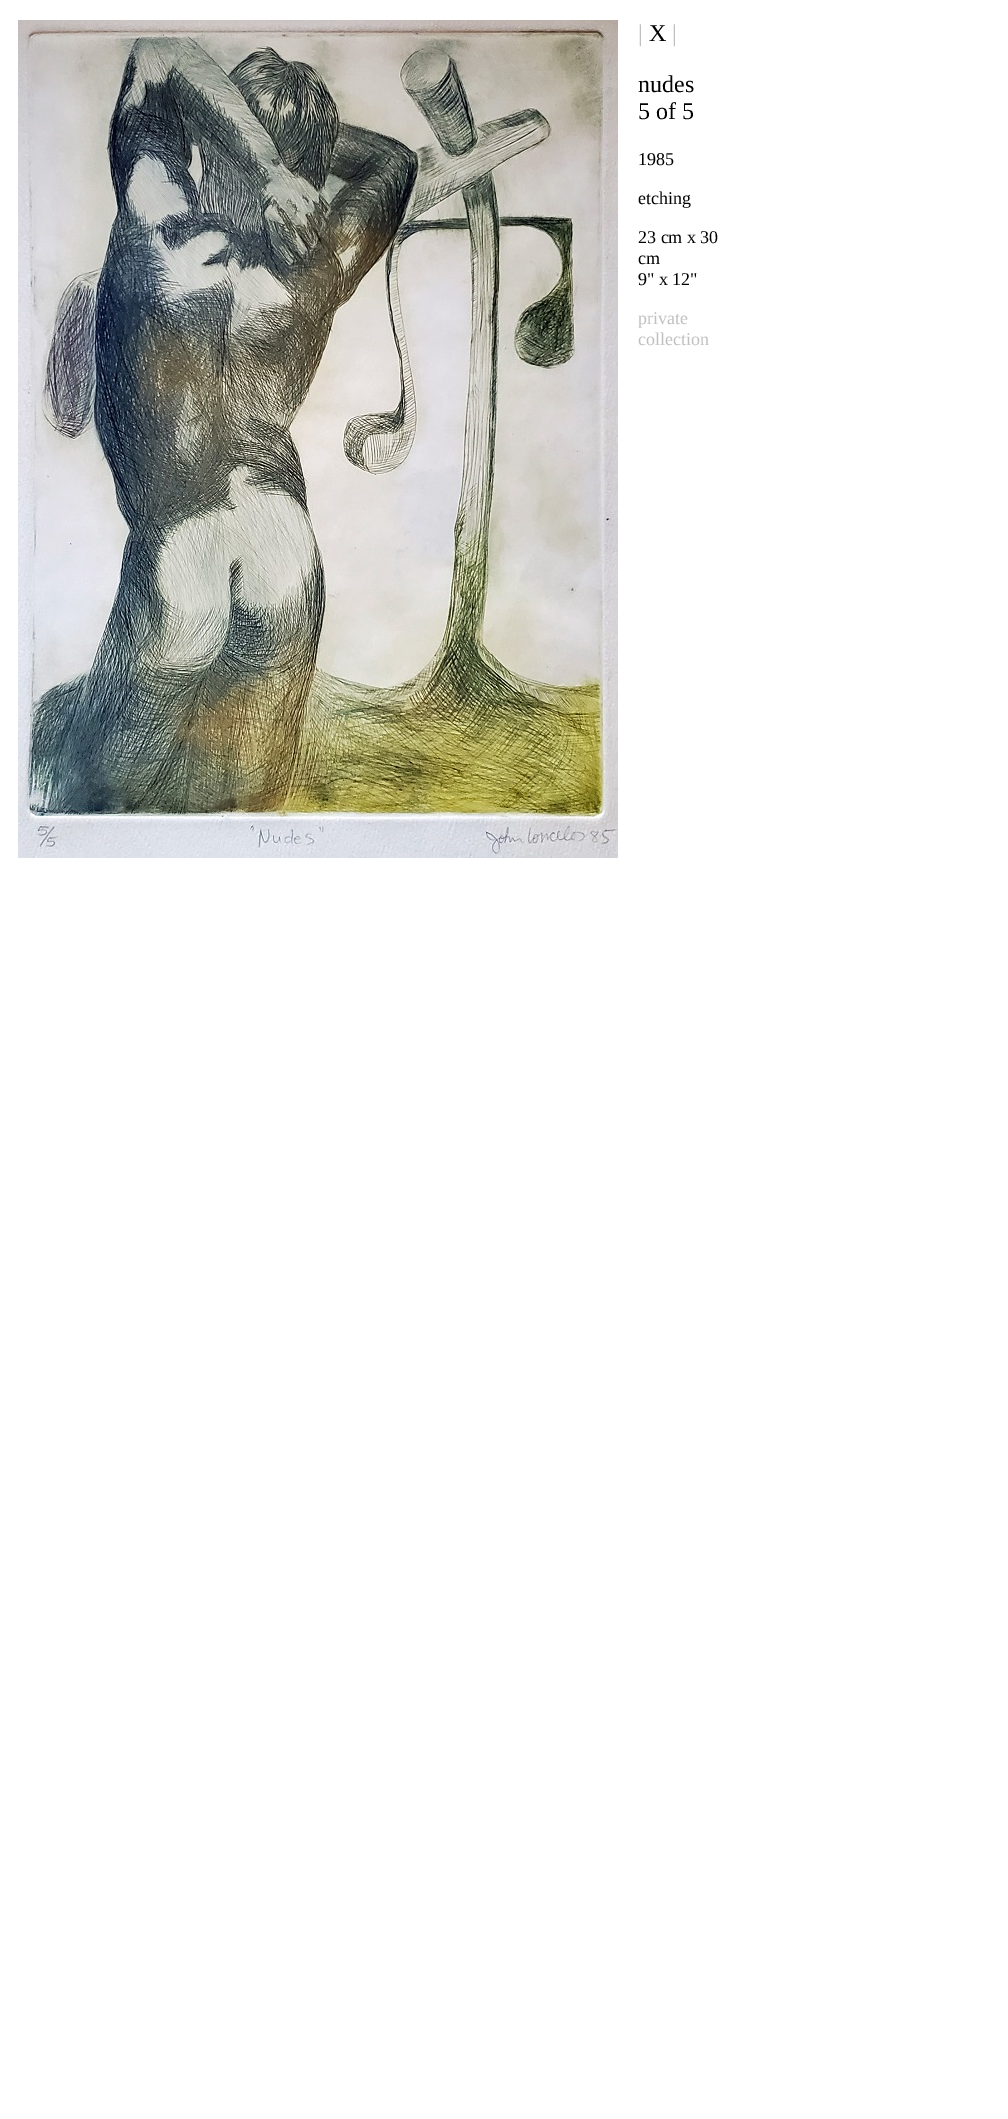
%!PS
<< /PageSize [1008 2119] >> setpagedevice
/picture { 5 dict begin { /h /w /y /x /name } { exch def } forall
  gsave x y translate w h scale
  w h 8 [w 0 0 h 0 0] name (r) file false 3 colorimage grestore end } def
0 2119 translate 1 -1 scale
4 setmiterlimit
1 setgray
0 0 1008 2119 rectfill
(img1.rgb) 18 20 600 838 picture
/LiberationSerif-Regular [24 0 0 -24 0 0] selectfont
0.753 setgray
638 41 moveto (|) show
0 setgray
649 41 moveto (X) show
0.753 setgray
672 41 moveto (|) show
0 setgray
638 92 moveto (nudes) show
638 119 moveto (5 of 5) show
/LiberationSerif-Regular [18 0 0 -18 0 0] selectfont
638 165 moveto (1985) show
638 204 moveto (etching) show
638 243 moveto (23 cm x 30) show
638 264 moveto (cm) show
638 285 moveto (9" x 12") show
0.753 setgray
638 324 moveto (private) show
638 345 moveto (collection) show
showpage
